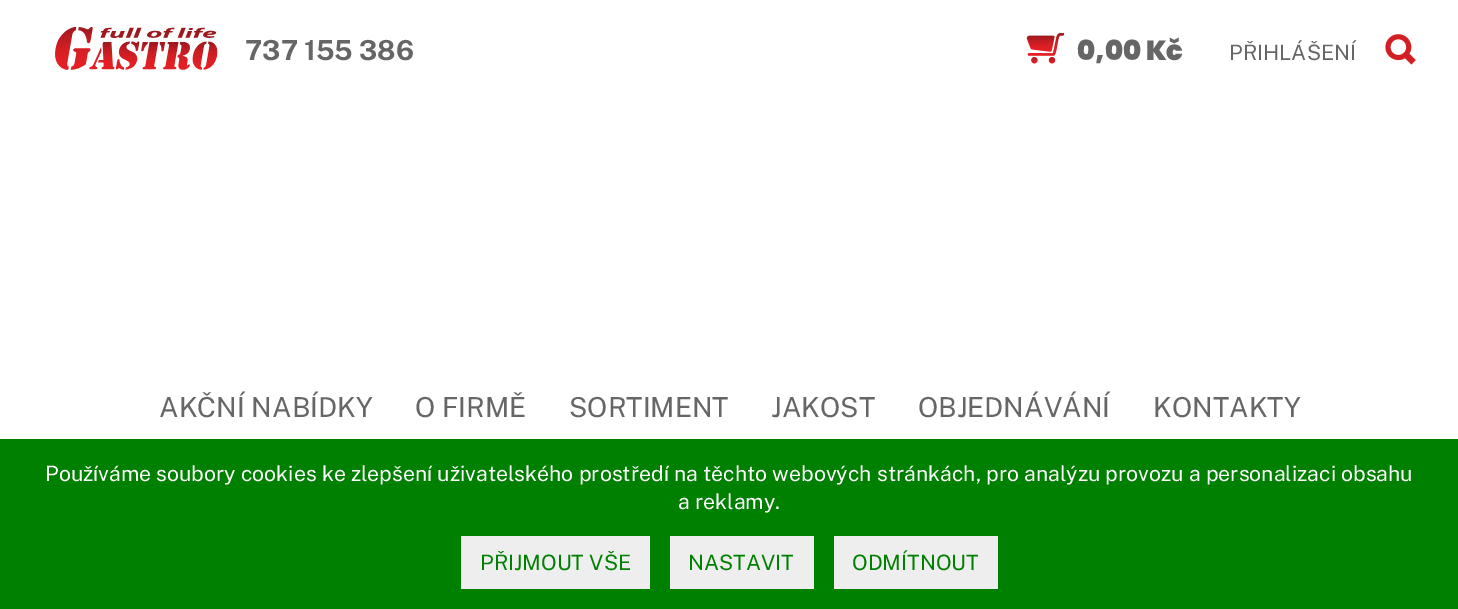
%!PS
<< /PageSize [1458 609] >> setpagedevice
/picture { 5 dict begin { /h /w /y /x /name } { exch def } forall
  gsave x y translate w h scale
  w h 8 [w 0 0 h 0 0] name (r) file false 3 colorimage grestore end } def
0 609 translate 1 -1 scale
4 setmiterlimit
1 setgray
0 0 1458 609 rectfill
(img1.rgb) 55 27 163 43 picture
/PublicSans-Bold [27.5 0 0 -27.5 0 0] selectfont
0.4 setgray
245 60 moveto (737 155 386) show
(img2.rgb) 1026 33 38 31 picture
/Poppins-Black [27.5 0 0 -27.5 0 0] selectfont
1077 60 moveto (0,00 Kč) show
/PublicSans-Regular [21.25 0 0 -21.25 0 0] selectfont
1229 60 moveto (PŘIHLÁŠENÍ) show
(img3.rgb) 1385 34 31 31 picture
/PublicSans-Regular [27.5 0 0 -27.5 0 0] selectfont
159 417 moveto (AKČNÍ NABÍDKY) show
415 417 moveto (O FIRMĚ) show
569 417 moveto (SORTIMENT) show
771 417 moveto (JAKOST) show
918 417 moveto (OBJEDNÁVÁNÍ) show
1153 417 moveto (KONTAKTY) show
0 0.502 0 setrgbcolor
0 439 1458 170 rectfill
/PublicSans-Regular [21.25 0 0 -21.25 0 0] selectfont
1 setgray
45 481 moveto (Používáme soubory cookies ke zlepšení uživatelského prostředí na těchto webových stránkách, pro analýzu provozu a personalizaci obsahu) show
678 509 moveto (a reklamy.) show
0.933 setgray
461 536 189 53 rectfill
0 0.502 0 setrgbcolor
480 570 moveto (PŘIJMOUT VŠE) show
0.933 setgray
670 536 144 53 rectfill
0 0.502 0 setrgbcolor
688 570 moveto (NASTAVIT) show
0.933 setgray
834 536 164 53 rectfill
0 0.502 0 setrgbcolor
852 570 moveto (ODMÍTNOUT) show
showpage
